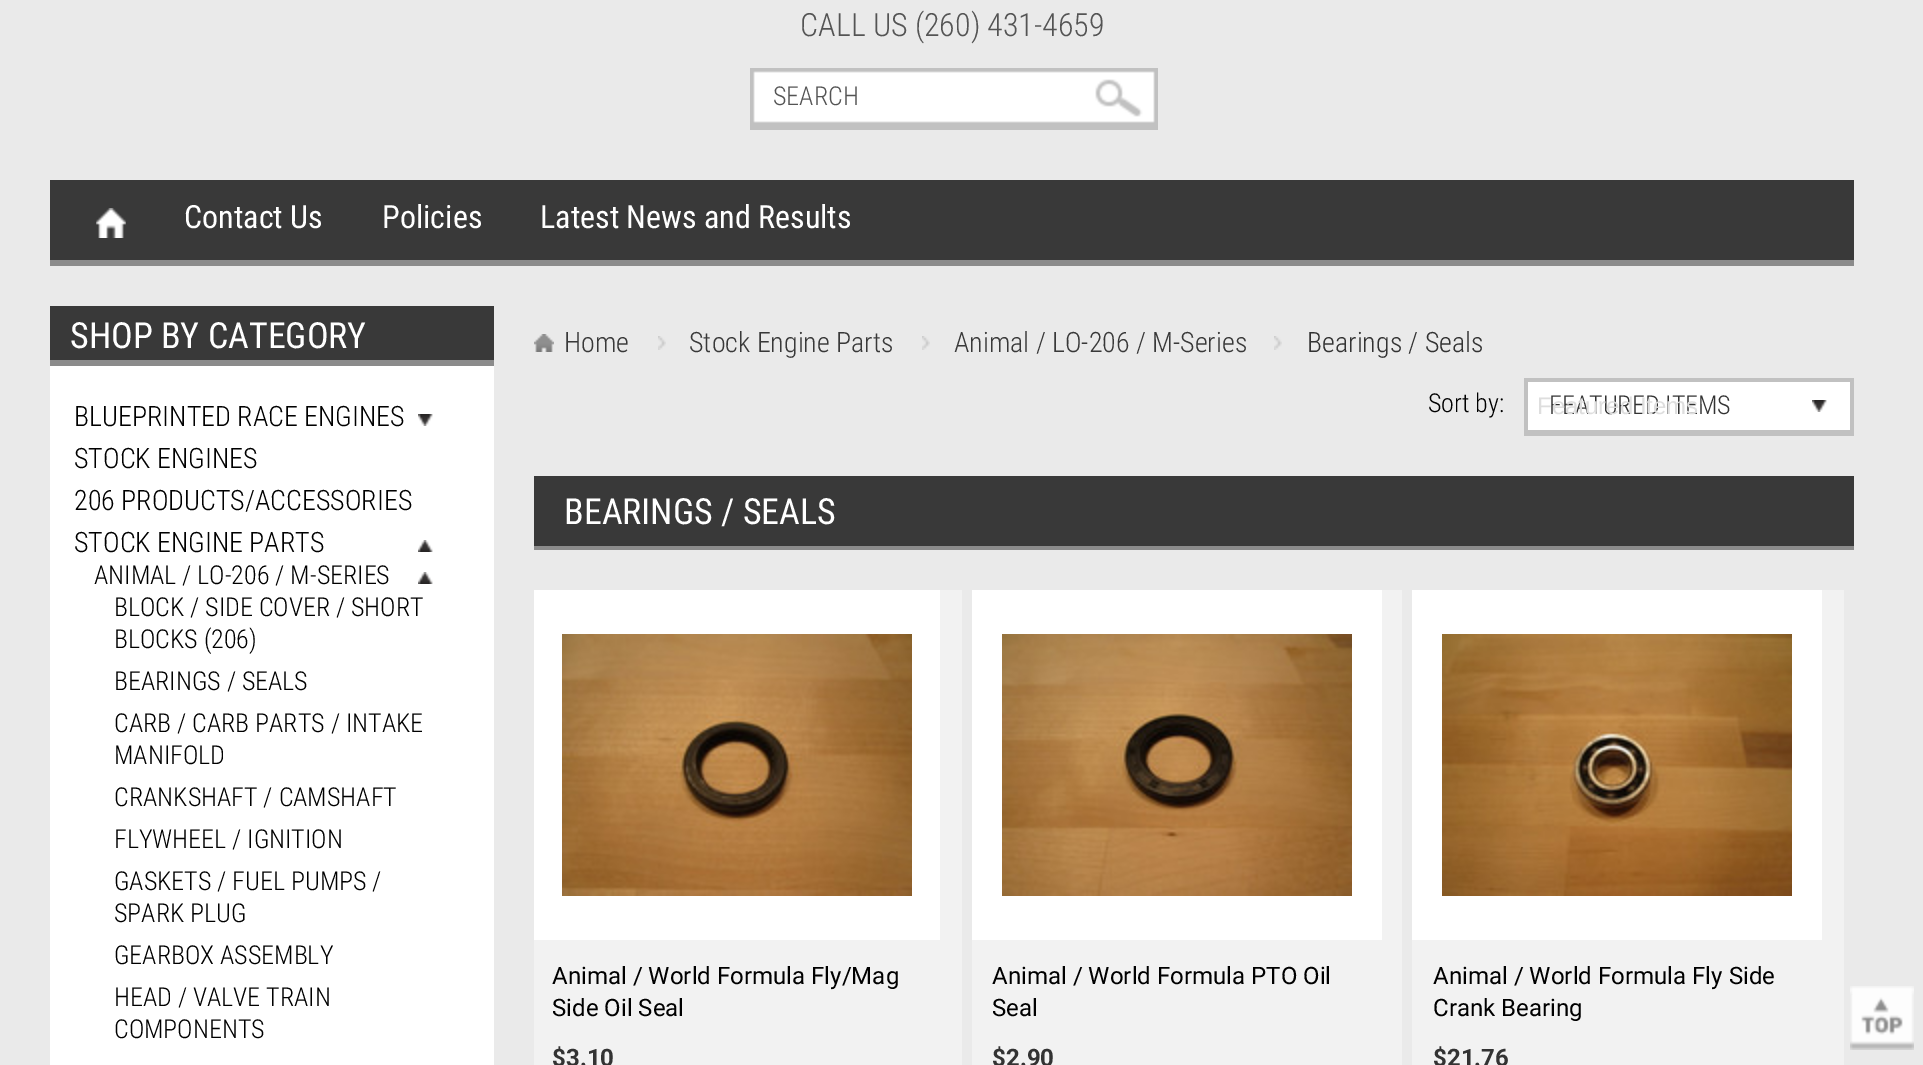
%!PS
<< /PageSize [1923 1065] >> setpagedevice
/picture { 5 dict begin { /h /w /y /x /name } { exch def } forall
  gsave x y translate w h scale
  w h 8 [w 0 0 h 0 0] name (r) file false 3 colorimage grestore end } def
0 1065 translate 1 -1 scale
4 setmiterlimit
0.918 setgray
0 0 1923 1065 rectfill
/RobotoCondensed-Light [32 0 0 -32 0 0] selectfont
0.329 setgray
800 36 moveto (CALL US \(260\) 431-4659) show
(img1.rgb) 750 68 408 62 picture
/RobotoCondensed-Light [26 0 0 -26 0 0] selectfont
773 105 moveto (SEARCH) show
0.224 setgray
50 180 1804 80 rectfill
0.545 setgray
50 260 1804 6 rectfill
(img2.rgb) 96 208 30 30 picture
/RobotoCondensed-Regular [32 0 0 -32 0 0] selectfont
1 setgray
184 228 moveto (Contact Us) show
382 228 moveto (Policies) show
540 228 moveto (Latest News and Results) show
0.224 setgray
50 306 444 54 rectfill
0.545 setgray
50 360 444 6 rectfill
/RobotoCondensed-Regular [36 0 0 -36 0 0] selectfont
1 setgray
70 348 moveto (SHOP BY CATEGORY) show
50 366 444 699 rectfill
/RobotoCondensed-Light [28 0 0 -28 0 0] selectfont
0 setgray
74 426 moveto (BLUEPRINTED RACE ENGINES) show
(img3.rgb) 418 414 15 12 picture
74 468 moveto (STOCK ENGINES) show
74 510 moveto (206 PRODUCTS/ACCESSORIES) show
74 552 moveto (STOCK ENGINE PARTS) show
(img4.rgb) 418 540 15 12 picture
/RobotoCondensed-Light [26 0 0 -26 0 0] selectfont
94 584 moveto (ANIMAL / LO-206 / M-SERIES) show
(img4.rgb) 418 572 15 12 picture
114 616 moveto (BLOCK / SIDE COVER / SHORT) show
114 648 moveto (BLOCKS \(206\)) show
114 690 moveto (BEARINGS / SEALS) show
114 732 moveto (CARB / CARB PARTS / INTAKE) show
114 764 moveto (MANIFOLD) show
114 806 moveto (CRANKSHAFT / CAMSHAFT) show
114 848 moveto (FLYWHEEL / IGNITION) show
114 890 moveto (GASKETS / FUEL PUMPS /) show
114 922 moveto (SPARK PLUG) show
114 964 moveto (GEARBOX ASSEMBLY) show
114 1006 moveto (HEAD / VALVE TRAIN) show
114 1038 moveto (COMPONENTS) show
(img5.rgb) 534 334 20 18 picture
(img6.rgb) 658 336 8 14 picture
/RobotoCondensed-Light [28 0 0 -28 0 0] selectfont
0.224 setgray
564 352 moveto (Home) show
(img6.rgb) 922 336 8 14 picture
689 352 moveto (Stock Engine Parts) show
(img6.rgb) 1274 336 8 14 picture
954 352 moveto (Animal / LO-206 / M-Series) show
0.2 setgray
1307 352 moveto (Bearings / Seals) show
/RobotoCondensed-Light [26 0 0 -26 0 0] selectfont
0 setgray
1428 412 moveto (Sort by:) show
1 setgray
1528 382 322 48 rectfill
(img3.rgb) 1812 400 15 12 picture
0.757 setgray
1524 378 330 4 rectfill
1850 378 4 58 rectfill
1524 430 330 6 rectfill
1524 378 4 58 rectfill
0.2 setgray
1549 414 moveto (FEATURED ITEMS) show
/LiberationSans-Regular [24 0 0 -24 0 0] selectfont
0.871 setgray
1537 414 moveto (Featured Items) show
0.224 setgray
534 476 1320 70 rectfill
0.545 setgray
534 546 1320 4 rectfill
/RobotoCondensed-Regular [36 0 0 -36 0 0] selectfont
1 setgray
564 524 moveto (BEARINGS / SEALS) show
0.949 setgray
534 590 428 475 rectfill
1 setgray
534 590 406 350 rectfill
(img7.rgb) 562 634 350 262 picture
/Roboto-Regular [24 0 0 -24 0 0] selectfont
0 setgray
552 984 moveto (Animal / World Formula Fly/Mag) show
552 1016 moveto (Side Oil Seal) show
/Roboto-Bold [24 0 0 -24 0 0] selectfont
0.2 setgray
552 1066 moveto ($3.10) show
0.949 setgray
972 590 430 475 rectfill
1 setgray
972 590 410 350 rectfill
(img8.rgb) 1002 634 350 262 picture
/Roboto-Regular [24 0 0 -24 0 0] selectfont
0 setgray
992 984 moveto (Animal / World Formula PTO Oil) show
992 1016 moveto (Seal) show
/Roboto-Bold [24 0 0 -24 0 0] selectfont
0.2 setgray
992 1066 moveto ($2.90) show
0.949 setgray
1412 590 432 475 rectfill
1 setgray
1412 590 410 350 rectfill
(img9.rgb) 1442 634 350 262 picture
/Roboto-Regular [24 0 0 -24 0 0] selectfont
0 setgray
1433 984 moveto (Animal / World Formula Fly Side) show
1433 1016 moveto (Crank Bearing) show
/Roboto-Bold [24 0 0 -24 0 0] selectfont
0.2 setgray
1433 1066 moveto ($21.76) show
(img10.rgb) 1850 986 64 64 picture
showpage
